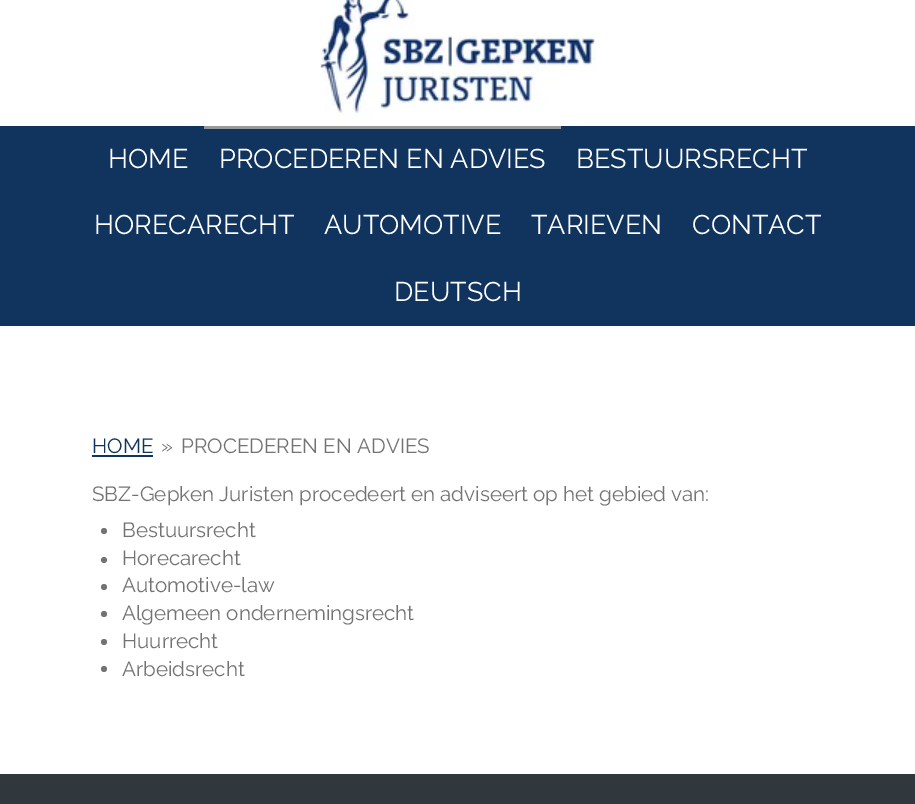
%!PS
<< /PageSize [915 804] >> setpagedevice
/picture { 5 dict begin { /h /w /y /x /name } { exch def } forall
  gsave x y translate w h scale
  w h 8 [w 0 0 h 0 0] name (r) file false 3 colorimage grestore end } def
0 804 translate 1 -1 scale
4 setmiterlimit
1 setgray
0 0 915 804 rectfill
(img1.rgb) 319 0 277 120 picture
0.067 0.204 0.369 setrgbcolor
0 126 915 200 rectfill
/Raleway-Regular [27 0 0 -27 0 0] selectfont
1 setgray
108 168 moveto (HOME) show
0.6 setgray
204 126 357 3 rectfill
1 setgray
219 168 moveto (PROCEDEREN EN ADVIES) show
576 168 moveto (BESTUURSRECHT) show
94 234 moveto (HORECARECHT) show
324 234 moveto (AUTOMOTIVE) show
531 234 moveto (TARIEVEN) show
692 234 moveto (CONTACT) show
394 301 moveto (DEUTSCH) show
/Raleway-Regular [20.55 0 0 -20.55 0 0] selectfont
0.067 0.204 0.369 setrgbcolor
92 453 moveto (HOME) show
92 455 61 2 rectfill
0.451 setgray
161 453 moveto (») show
181 453 moveto (PROCEDEREN EN ADVIES) show
92 501 moveto (SBZ-Gepken Juristen procedeert en adviseert op het gebied van:) show
newpath 104 531 3 0 360 arc closepath fill
122 537 moveto (Bestuursrecht) show
newpath 104 560 3 0 360 arc closepath fill
122 565 moveto (Horecarecht) show
newpath 104 587 3 0 360 arc closepath fill
122 592 moveto (Automotive-law) show
newpath 104 614 3 0 360 arc closepath fill
122 620 moveto (Algemeen ondernemingsrecht) show
newpath 104 642 3 0 360 arc closepath fill
122 648 moveto (Huurrecht) show
newpath 104 669 3 0 360 arc closepath fill
122 676 moveto (Arbeidsrecht) show
0.188 0.22 0.239 setrgbcolor
0 774 915 30 rectfill
showpage
